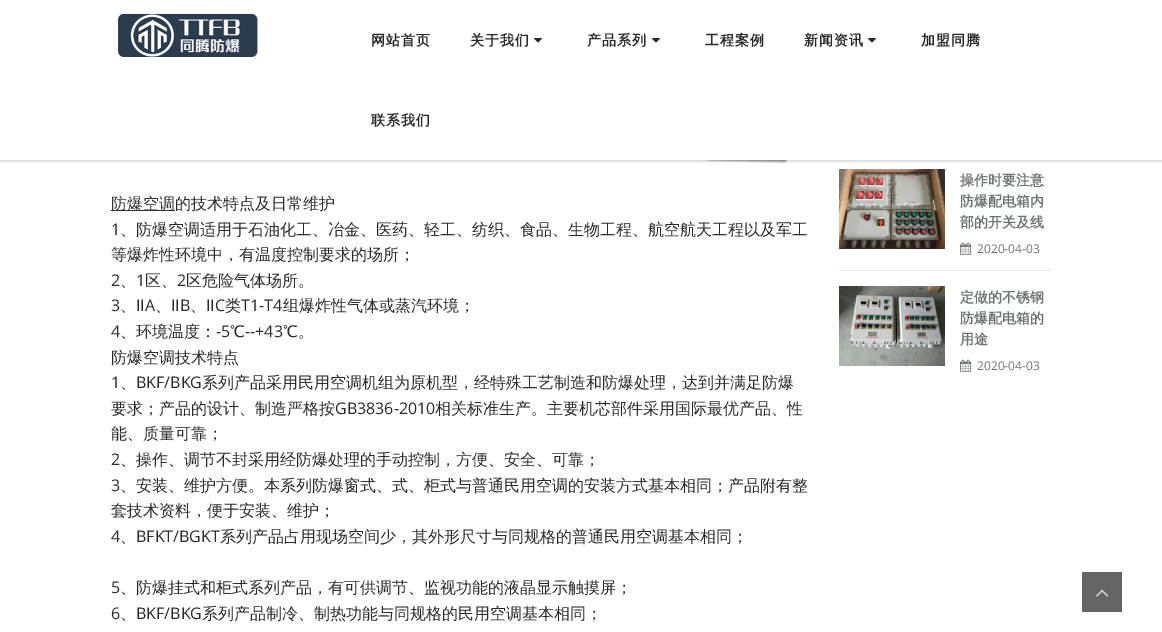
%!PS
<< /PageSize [1162 632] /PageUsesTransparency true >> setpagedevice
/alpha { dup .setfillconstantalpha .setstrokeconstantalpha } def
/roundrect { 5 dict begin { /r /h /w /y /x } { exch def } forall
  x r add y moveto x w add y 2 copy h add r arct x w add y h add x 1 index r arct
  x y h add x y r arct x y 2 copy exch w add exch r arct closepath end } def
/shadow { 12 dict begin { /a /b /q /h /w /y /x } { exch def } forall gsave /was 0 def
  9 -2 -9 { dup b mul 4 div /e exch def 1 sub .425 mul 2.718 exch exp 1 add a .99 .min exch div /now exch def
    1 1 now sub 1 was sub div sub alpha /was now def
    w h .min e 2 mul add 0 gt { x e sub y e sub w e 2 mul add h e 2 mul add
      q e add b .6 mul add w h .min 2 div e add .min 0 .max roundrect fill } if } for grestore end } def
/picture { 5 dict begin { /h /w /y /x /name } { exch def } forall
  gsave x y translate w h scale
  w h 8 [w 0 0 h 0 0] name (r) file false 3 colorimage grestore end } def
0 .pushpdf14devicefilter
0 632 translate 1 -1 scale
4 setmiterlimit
1 setgray
0 0 1162 632 rectfill
(img3.rgb) 120 160 674 3 picture
0 setgray
0 1 1162 160 0 1.5 0.2 shadow
1 setgray
0 0 1162 160 rectfill
(img1.rgb) 118 13 140 44 picture
/WenQuanYiZenHei-Bold [14 0 0 -14 0 0] selectfont
0.161 setgray
371 45 moveto 1 0 (网站首页) ashow
470 45 moveto 1 0 (关于我们) ashow
(img2.rgb) 534 38 8 5 picture
587 45 moveto 1 0 (产品系列) ashow
(img2.rgb) 652 38 8 5 picture
705 45 moveto 1 0 (工程案例) ashow
804 45 moveto 1 0 (新闻资讯) ashow
(img2.rgb) 868 38 8 5 picture
921 45 moveto 1 0 (加盟同腾) ashow
371 125 moveto 1 0 (联系我们) ashow
0.2 setgray
111 210 64 1 rectfill
/WenQuanYiZenHei-Medium [16 0 0 -16 0 0] selectfont
111 209 moveto (防爆空调) show
0.161 setgray
175 209 moveto (的技术特点及日常维护) show
/OpenSans-Regular [16 0 0 -16 0 0] selectfont
111 235 moveto (1) show
/WenQuanYiZenHei-Medium [16 0 0 -16 0 0] selectfont
120 235 moveto (、防爆空调适用于石油化工、冶金、医药、轻工、纺织、食品、生物工程、航空航天工程以及军工) show
111 260 moveto (等爆炸性环境中，有温度控制要求的场所；) show
/OpenSans-Regular [16 0 0 -16 0 0] selectfont
111 286 moveto (2) show
/WenQuanYiZenHei-Medium [16 0 0 -16 0 0] selectfont
120 286 moveto (、) show
/OpenSans-Regular [16 0 0 -16 0 0] selectfont
136 286 moveto (1) show
/WenQuanYiZenHei-Medium [16 0 0 -16 0 0] selectfont
145 286 moveto (区、) show
/OpenSans-Regular [16 0 0 -16 0 0] selectfont
177 286 moveto (2) show
/WenQuanYiZenHei-Medium [16 0 0 -16 0 0] selectfont
186 286 moveto (区危险气体场所。) show
/OpenSans-Regular [16 0 0 -16 0 0] selectfont
111 311 moveto (3) show
/WenQuanYiZenHei-Medium [16 0 0 -16 0 0] selectfont
120 311 moveto (、) show
/OpenSans-Regular [16 0 0 -16 0 0] selectfont
136 311 moveto (IIA) show
/WenQuanYiZenHei-Medium [16 0 0 -16 0 0] selectfont
155 311 moveto (、) show
/OpenSans-Regular [16 0 0 -16 0 0] selectfont
171 311 moveto (IIB) show
/WenQuanYiZenHei-Medium [16 0 0 -16 0 0] selectfont
190 311 moveto (、) show
/OpenSans-Regular [16 0 0 -16 0 0] selectfont
206 311 moveto (IIC) show
/WenQuanYiZenHei-Medium [16 0 0 -16 0 0] selectfont
225 311 moveto (类) show
/OpenSans-Regular [16 0 0 -16 0 0] selectfont
241 311 moveto (T1-T4) show
/WenQuanYiZenHei-Medium [16 0 0 -16 0 0] selectfont
283 311 moveto (组爆炸性气体或蒸汽环境；) show
/OpenSans-Regular [16 0 0 -16 0 0] selectfont
111 337 moveto (4) show
/WenQuanYiZenHei-Medium [16 0 0 -16 0 0] selectfont
120 337 moveto (、环境温度：) show
/OpenSans-Regular [16 0 0 -16 0 0] selectfont
216 337 moveto (-5) show
/WenQuanYiZenHei-Medium [16 0 0 -16 0 0] selectfont
230 337 moveto (℃) show
/OpenSans-Regular [16 0 0 -16 0 0] selectfont
245 337 moveto (--+43) show
/WenQuanYiZenHei-Medium [16 0 0 -16 0 0] selectfont
283 337 moveto (℃。) show
111 363 moveto (防爆空调技术特点) show
/OpenSans-Regular [16 0 0 -16 0 0] selectfont
111 388 moveto (1) show
/WenQuanYiZenHei-Medium [16 0 0 -16 0 0] selectfont
120 388 moveto (、) show
/OpenSans-Regular [16 0 0 -16 0 0] selectfont
136 388 moveto (BKF/BKG) show
/WenQuanYiZenHei-Medium [16 0 0 -16 0 0] selectfont
202 388 moveto (系列产品采用民用空调机组为原机型，经特殊工艺制造和防爆处理，达到并满足防爆) show
111 414 moveto (要求；产品的设计、制造严格按) show
/OpenSans-Regular [16 0 0 -16 0 0] selectfont
335 414 moveto (GB3836-2010) show
/WenQuanYiZenHei-Medium [16 0 0 -16 0 0] selectfont
435 414 moveto (相关标准生产。主要机芯部件采用国际最优产品、性) show
111 439 moveto (能、质量可靠；) show
/OpenSans-Regular [16 0 0 -16 0 0] selectfont
111 465 moveto (2) show
/WenQuanYiZenHei-Medium [16 0 0 -16 0 0] selectfont
120 465 moveto (、操作、调节不封采用经防爆处理的手动控制，方便、安全、可靠；) show
/OpenSans-Regular [16 0 0 -16 0 0] selectfont
111 491 moveto (3) show
/WenQuanYiZenHei-Medium [16 0 0 -16 0 0] selectfont
120 491 moveto (、安装、维护方便。本系列防爆窗式、式、柜式与普通民用空调的安装方式基本相同；产品附有整) show
111 516 moveto (套技术资料，便于安装、维护；) show
/OpenSans-Regular [16 0 0 -16 0 0] selectfont
111 542 moveto (4) show
/WenQuanYiZenHei-Medium [16 0 0 -16 0 0] selectfont
120 542 moveto (、) show
/OpenSans-Regular [16 0 0 -16 0 0] selectfont
136 542 moveto (BFKT/BGKT) show
/WenQuanYiZenHei-Medium [16 0 0 -16 0 0] selectfont
220 542 moveto (系列产品占用现场空间少，其外形尺寸与同规格的普通民用空调基本相同；) show
/OpenSans-Regular [16 0 0 -16 0 0] selectfont
111 593 moveto (5) show
/WenQuanYiZenHei-Medium [16 0 0 -16 0 0] selectfont
120 593 moveto (、防爆挂式和柜式系列产品，有可供调节、监视功能的液晶显示触摸屏；) show
/OpenSans-Regular [16 0 0 -16 0 0] selectfont
111 619 moveto (6) show
/WenQuanYiZenHei-Medium [16 0 0 -16 0 0] selectfont
120 619 moveto (、) show
/OpenSans-Regular [16 0 0 -16 0 0] selectfont
136 619 moveto (BKF/BKG) show
/WenQuanYiZenHei-Medium [16 0 0 -16 0 0] selectfont
202 619 moveto (系列产品制冷、制热功能与同规格的民用空调基本相同；) show
0.91 0.914 0.937 setrgbcolor
839 270 212 1 rectfill
(img4.rgb) 839 169 106 80 picture
/WenQuanYiZenHei-Bold [14 0 0 -14 0 0] selectfont
0.431 0.451 0.459 setrgbcolor
960 185 moveto (操作时要注意) show
960 206 moveto (防爆配电箱内) show
960 227 moveto (部的开关及线) show
(img5.rgb) 960 242 12 13 picture
/OpenSans-Regular [12 0 0 -12 0 0] selectfont
977 253 moveto (2020-04-03) show
(img6.rgb) 839 286 106 80 picture
/WenQuanYiZenHei-Bold [14 0 0 -14 0 0] selectfont
960 302 moveto (定做的不锈钢) show
960 323 moveto (防爆配电箱的) show
960 344 moveto (用途) show
(img5.rgb) 960 359 12 13 picture
/OpenSans-Regular [12 0 0 -12 0 0] selectfont
977 370 moveto (2020-04-03) show
0.392 setgray
1082 572 40 40 rectfill
(img7.rgb) 1096 589 13 8 picture
.poppdf14devicefilter showpage
